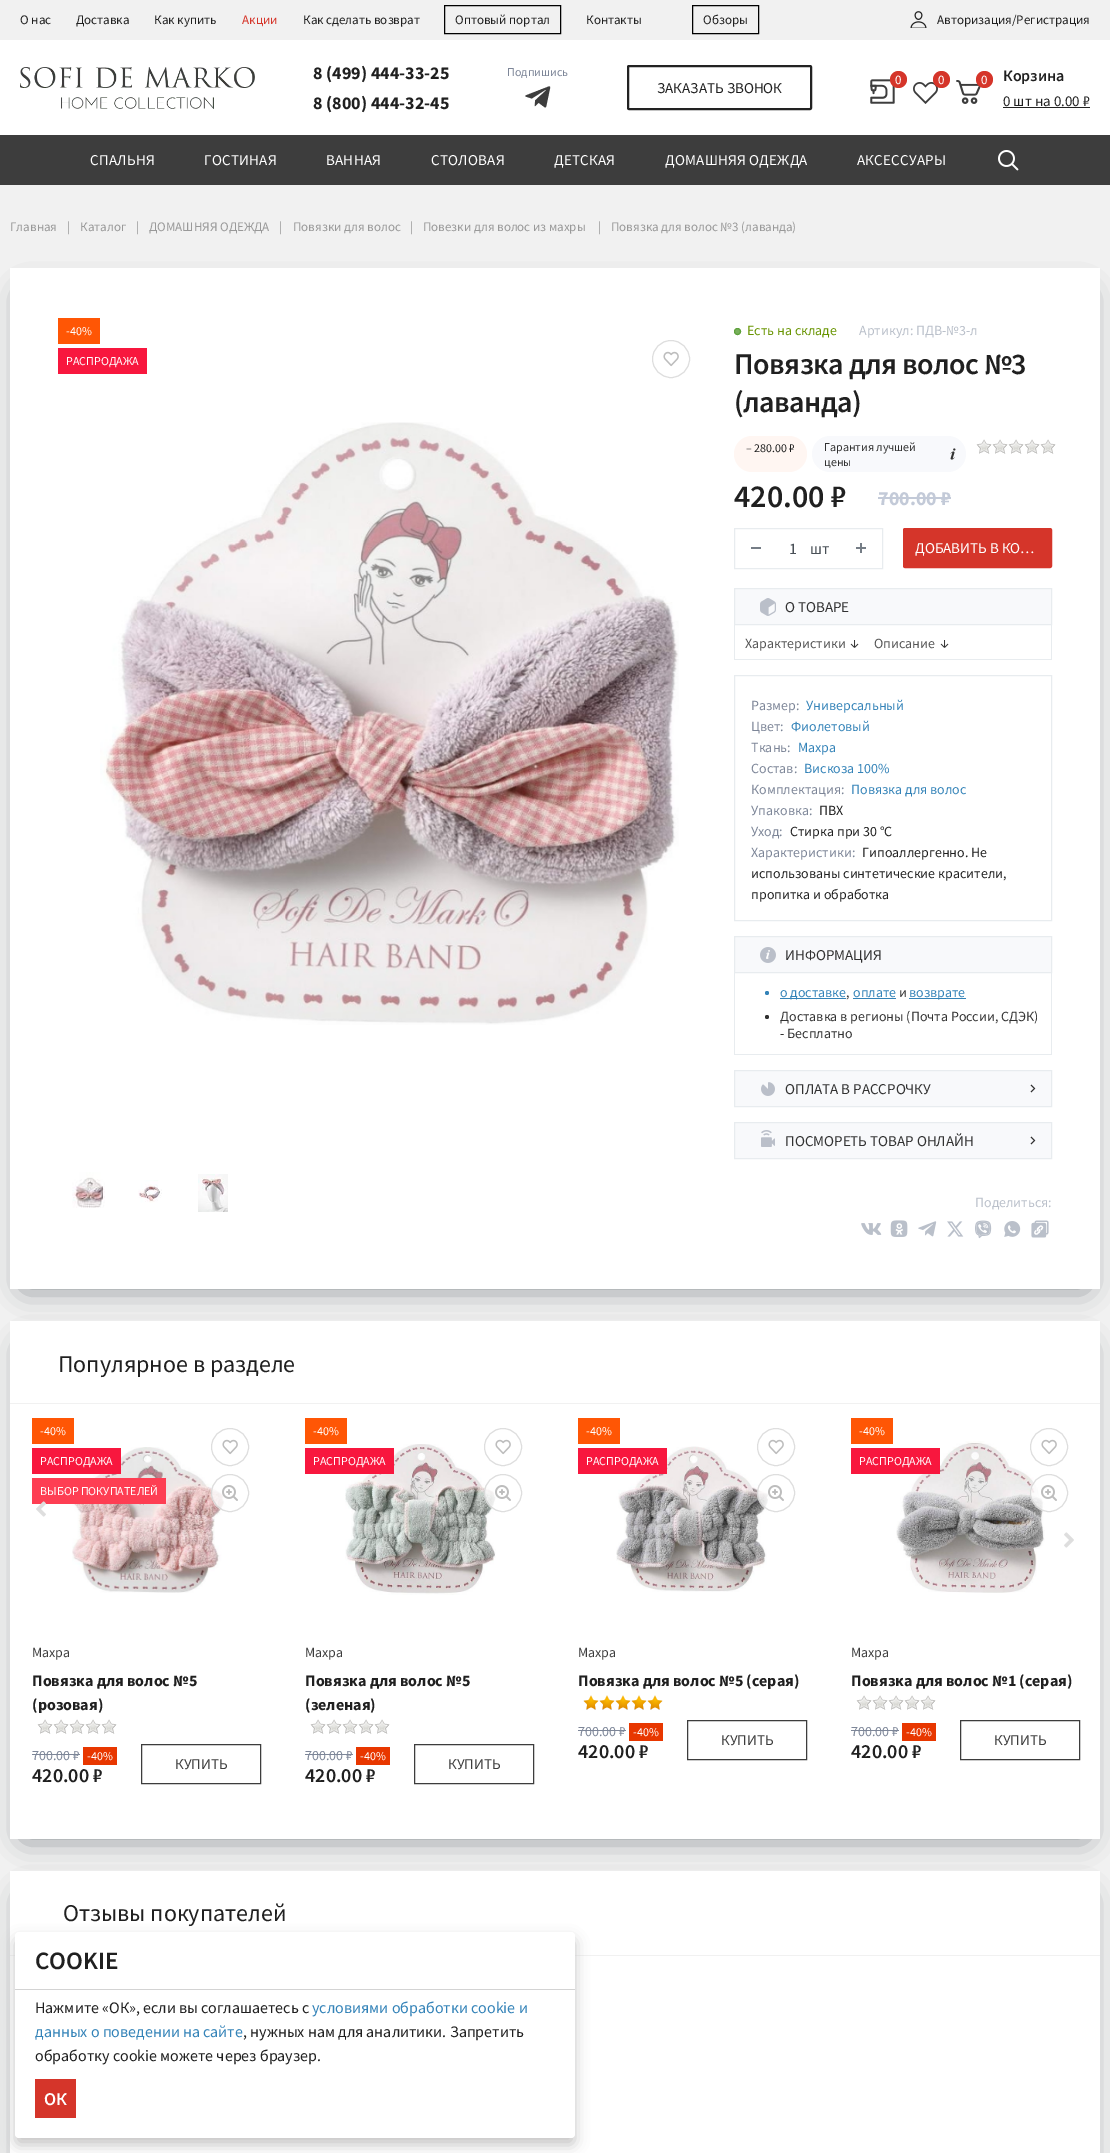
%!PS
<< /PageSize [1110 2153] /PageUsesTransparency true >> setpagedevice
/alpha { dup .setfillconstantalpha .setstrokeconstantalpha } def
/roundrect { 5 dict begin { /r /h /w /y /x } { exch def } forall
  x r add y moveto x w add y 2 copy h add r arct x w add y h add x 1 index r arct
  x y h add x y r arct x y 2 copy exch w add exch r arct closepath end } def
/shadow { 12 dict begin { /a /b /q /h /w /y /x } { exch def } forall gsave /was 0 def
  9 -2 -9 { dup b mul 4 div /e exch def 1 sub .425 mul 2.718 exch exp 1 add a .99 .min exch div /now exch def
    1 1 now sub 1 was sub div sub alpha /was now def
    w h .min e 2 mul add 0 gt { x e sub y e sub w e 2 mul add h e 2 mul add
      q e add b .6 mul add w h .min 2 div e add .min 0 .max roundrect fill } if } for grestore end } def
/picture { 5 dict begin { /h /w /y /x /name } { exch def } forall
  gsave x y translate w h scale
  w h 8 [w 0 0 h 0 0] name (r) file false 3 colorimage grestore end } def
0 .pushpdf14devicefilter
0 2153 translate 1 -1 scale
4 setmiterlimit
0.945 setgray
0 0 1110 2153 rectfill
/SourceSansPro-Regular [13 0 0 -13 0 0] selectfont
0.125 setgray
20 24 moveto (О нас) show
76 24 moveto (Доставка) show
154 24 moveto (Как купить) show
0.835 0.208 0.165 setrgbcolor
242 24 moveto (Акции) show
0.125 setgray
303 24 moveto (Как сделать возврат) show
0 setgray
444.5 5.5 116 28 rectstroke
0.125 setgray
455 24 moveto (Оптовый портал) show
586 24 moveto (Контакты) show
0 setgray
692.5 5.5 66 28 rectstroke
0.125 setgray
703 24 moveto (Обзоры) show
(img1.rgb) 910 11 17 17 picture
937 24 moveto (Авторизация/Регистрация) show
1 setgray
0 40 1110 95 rectfill
(img2.rgb) 20 67 235 42 picture
/SourceSansPro-Bold [18 0 0 -18 0 0] selectfont
0.125 setgray
313 79 moveto (8 \(499\) 444-33-25) show
313 109 moveto (8 \(800\) 444-32-45) show
/SourceSansPro-Regular [12 0 0 -12 0 0] selectfont
0.49 0.525 0.596 setrgbcolor
507 76 moveto (Подпишись) show
(img3.rgb) 525 86 26 22 picture
0.133 setgray
2 setlinewidth
628 66 183 43 1 roundrect stroke
/SourceSansPro-Regular [15 0 0 -15 0 0] selectfont
0.125 setgray
657 93 moveto (ЗАКАЗАТЬ ЗВОНОК) show
(img4.rgb) 870 79 25 25 picture
0.835 0.208 0.165 setrgbcolor
newpath 898.5 79.5 8.5 0 360 arc closepath fill
/SourceSansPro-Regular [13 0 0 -13 0 0] selectfont
1 setgray
895 84 moveto (0) show
(img5.rgb) 913 82 25 22 picture
0.835 0.208 0.165 setrgbcolor
newpath 941.5 79.5 8.5 0 360 arc closepath fill
1 setgray
938 84 moveto (0) show
(img6.rgb) 956 80 25 24 picture
0.835 0.208 0.165 setrgbcolor
newpath 984.5 79.5 8.5 0 360 arc closepath fill
1 setgray
981 84 moveto (0) show
/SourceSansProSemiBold-SemiBold [16 0 0 -16 0 0] selectfont
0.125 setgray
1003 81 moveto (Корзина) show
/SourceSansPro-Regular [15 0 0 -15 0 0] selectfont
1003 106 moveto (0 шт на 0.00 ₽) show
0.133 setgray
1003 107 87 1 rectfill
0.239 setgray
0 135 1110 50 rectfill
1 setgray
90 165 moveto 0.25 0 (СПАЛЬНЯ) ashow
204 165 moveto 0.25 0 (ГОСТИНАЯ) ashow
326 165 moveto 0.25 0 (ВАННАЯ) ashow
431 165 moveto 0.25 0 (СТОЛОВАЯ) ashow
554 165 moveto 0.25 0 (ДЕТСКАЯ) ashow
665 165 moveto 0.25 0 (ДОМАШНЯЯ ОДЕЖДА) ashow
857 165 moveto 0.25 0 (АКСЕССУАРЫ) ashow
(img7.rgb) 998 150 21 21 picture
/SourceSansPro-Regular [13 0 0 -13 0 0] selectfont
0.6 setgray
10 231 moveto (Главная) show
67 231 moveto (|) show
80 231 moveto (Каталог) show
136 231 moveto (|) show
149 231 moveto (ДОМАШНЯЯ ОДЕЖДА) show
279 231 moveto (|) show
293 231 moveto (Повязки для волос) show
410 231 moveto (|) show
423 231 moveto (Повезки для волос из махры) show
598 231 moveto (|) show
611 231 moveto (Повязка для волос №3 \(лаванда\)) show
0.239 0.282 0.318 setrgbcolor
25 1348 1060 488 0 15 0.75 shadow
1 setgray
10 1321 1090 82 rectfill
0.239 0.282 0.318 setrgbcolor
25 295 1060 991 0 15 0.75 shadow
1 setgray
10 268 1090 1021 rectfill
1 0.337 0.02 setrgbcolor
58 318 42 26 rectfill
/SourceSansPro-Regular [12 0 0 -12 0 0] selectfont
1 setgray
66 335 moveto (-40%) show
0.973 0.09 0.243 setrgbcolor
58 348 89 26 rectfill
1 setgray
66 365 moveto (РАСПРОДАЖА) show
0.871 setgray
1 setlinewidth
newpath 671 359 18.5 0 360 arc closepath stroke
(img8.rgb) 663 351 16 16 picture
(img9.rgb) 100 422 579 603 picture
(img10.rgb) 72 1172 33 36 picture
(img11.rgb) 138 1180 24 23 picture
(img12.rgb) 198 1174 30 38 picture
0.471 0.69 0.361 setrgbcolor
newpath 737.5 331.5 3 0 360 arc closepath gsave fill grestore
0.369 0.631 0.239 setrgbcolor
stroke
/SourceSansPro-Regular [14 0 0 -14 0 0] selectfont
0.408 0.58 0 setrgbcolor
747 335 moveto (Есть на складе) show
0.729 0.753 0.792 setrgbcolor
859 335 moveto (Артикул: ПДВ-№3-л) show
/SourceSansProSemiBold-SemiBold [30 0 0 -30 0 0] selectfont
0.125 setgray
734 374 moveto -0.5 0 (Повязка для волос №3) ashow
734 412 moveto -0.5 0 (\(лаванда\)) ashow
1 0.965 0.949 setrgbcolor
734 436 73 36 18 roundrect fill
/SourceSansPro-Regular [12 0 0 -12 0 0] selectfont
0.125 setgray
746 452 moveto (– 280.00 ₽) show
0.973 0.976 0.988 setrgbcolor
812 436 154 36 18 roundrect fill
(img13.rgb) 950 448 6 12 picture
0.196 setgray
824 451 moveto (Гарантия лучшей) show
824 466 moveto (цены) show
(img14.rgb) 976 439 16 15 picture
(img14.rgb) 992 439 16 15 picture
(img14.rgb) 1008 439 16 15 picture
(img14.rgb) 1024 439 16 15 picture
(img14.rgb) 1040 439 16 15 picture
/SourceSansProSemiBold-SemiBold [32 0 0 -32 0 0] selectfont
0.125 setgray
734 507 moveto (420.00 ₽) show
/SourceSansPro-Bold [20 0 0 -20 0 0] selectfont
0.765 0.792 0.847 setrgbcolor
878 505 moveto (700.00 ₽) show
878 497 73 2 rectfill
0.91 0.925 0.937 setrgbcolor
734.5 528.5 148 40 rectstroke
0.459 0.49 0.525 setrgbcolor
751 547 10 2 rectfill
/SourceSansPro-Regular [16 0 0 -16 0 0] selectfont
0.286 0.314 0.341 setrgbcolor
789 554 moveto (1) show
810 554 moveto (шт) show
(img15.rgb) 856 543 10 10 picture
0.835 0.208 0.165 setrgbcolor
904 529 147 38 1 roundrect gsave fill grestore
2 setlinewidth
stroke
/SourceSansPro-Regular [15 0 0 -15 0 0] selectfont
1 setgray
915 553 moveto (ДОБАВИТЬ В КО…) show
0.973 0.976 0.984 setrgbcolor
newpath 734.5 588.5 moveto 1051.5 588.5 lineto 1051.5 624.5 lineto 734.5 624.5 lineto closepath gsave fill grestore
0.91 0.925 0.937 setrgbcolor
1 setlinewidth
stroke
(img16.rgb) 760 598 16 18 picture
0.196 setgray
785 612 moveto (О ТОВАРЕ) show
0.91 0.925 0.937 setrgbcolor
1051 625 1 35 rectfill
734 659 318 1 rectfill
734 625 1 35 rectfill
(img17.rgb) 850 640 9 8 picture
/SourceSansPro-Regular [14 0 0 -14 0 0] selectfont
0.333 setgray
745 648 moveto (Характеристики) show
(img17.rgb) 940 640 9 8 picture
874 648 moveto (Описание) show
0.91 0.925 0.937 setrgbcolor
734.5 675.5 317 245 rectstroke
0.49 0.525 0.596 setrgbcolor
751 710 moveto (Размер:) show
0.204 0.514 0.722 setrgbcolor
806 710 moveto (Универсальный) show
0.49 0.525 0.596 setrgbcolor
751 731 moveto (Цвет:) show
0.204 0.514 0.722 setrgbcolor
791 731 moveto (Фиолетовый) show
0.49 0.525 0.596 setrgbcolor
751 752 moveto (Ткань:) show
0.204 0.514 0.722 setrgbcolor
798 752 moveto (Махра) show
0.49 0.525 0.596 setrgbcolor
751 773 moveto (Состав:) show
0.204 0.514 0.722 setrgbcolor
804 773 moveto (Вискоза 100%) show
0.49 0.525 0.596 setrgbcolor
751 794 moveto (Комплектация:) show
0.204 0.514 0.722 setrgbcolor
851 794 moveto (Повязка для волос) show
0.49 0.525 0.596 setrgbcolor
751 815 moveto (Упаковка:) show
0.125 setgray
819 815 moveto (ПВХ) show
0.49 0.525 0.596 setrgbcolor
751 836 moveto (Уход:) show
0.125 setgray
790 836 moveto (Стирка при 30 °С) show
0.49 0.525 0.596 setrgbcolor
751 857 moveto (Характеристики:) show
0.125 setgray
862 857 moveto (Гипоаллергенно. Не) show
751 878 moveto (использованы синтетические красители,) show
751 899 moveto (пропитка и обработка) show
0.973 0.976 0.984 setrgbcolor
newpath 734.5 936.5 moveto 1051.5 936.5 lineto 1051.5 972.5 lineto 734.5 972.5 lineto closepath gsave fill grestore
0.91 0.925 0.937 setrgbcolor
stroke
(img18.rgb) 760 947 16 16 picture
/SourceSansPro-Regular [15 0 0 -15 0 0] selectfont
0.196 setgray
785 960 moveto (ИНФОРМАЦИЯ) show
0.91 0.925 0.937 setrgbcolor
1051 973 1 82 rectfill
734 1054 318 1 rectfill
734 973 1 82 rectfill
0.204 0.514 0.722 setrgbcolor
newpath 767 993 2 0 360 arc closepath fill
780 998 66 1 rectfill
/SourceSansPro-Regular [14 0 0 -14 0 0] selectfont
780 997 moveto (о доставке) show
853 997 moveto (оплате) show
853 998 43 1 rectfill
0.196 setgray
899 997 moveto (и) show
0.204 0.514 0.722 setrgbcolor
909 998 57 1 rectfill
909 997 moveto (возврате) show
0.196 setgray
846 997 moveto (,) show
newpath 767 1017 2 0 360 arc closepath fill
780 1021 moveto (Доставка в регионы \(Почта России, СДЭК\)) show
780 1038 moveto (- Бесплатно) show
0.973 0.976 0.984 setrgbcolor
newpath 734.5 1070.5 moveto 1051.5 1070.5 lineto 1051.5 1106.5 lineto 734.5 1106.5 lineto closepath gsave fill grestore
0.91 0.925 0.937 setrgbcolor
stroke
0.196 setgray
newpath 1031 1092 moveto 1034.5 1088.5 lineto 1031 1085 lineto stroke
(img19.rgb) 761 1082 14 14 picture
/SourceSansPro-Regular [15 0 0 -15 0 0] selectfont
785 1094 moveto (ОПЛАТА В РАССРОЧКУ) show
0.973 0.976 0.984 setrgbcolor
newpath 734.5 1122.5 moveto 1051.5 1122.5 lineto 1051.5 1158.5 lineto 734.5 1158.5 lineto closepath gsave fill grestore
0.91 0.925 0.937 setrgbcolor
stroke
0.196 setgray
newpath 1031 1144 moveto 1034.5 1140.5 lineto 1031 1137 lineto stroke
(img20.rgb) 761 1130 14 17 picture
785 1146 moveto (ПОСМОРЕТЬ ТОВАР ОНЛАЙН) show
/SourceSansPro-Regular [14 0 0 -14 0 0] selectfont
0.729 0.753 0.792 setrgbcolor
975 1207 moveto (Поделиться:) show
(img21.rgb) 861 1223 21 12 picture
(img22.rgb) 890 1220 18 17 picture
(img23.rgb) 918 1221 19 16 picture
(img24.rgb) 947 1221 17 16 picture
(img25.rgb) 975 1220 17 19 picture
(img26.rgb) 1004 1221 17 16 picture
(img27.rgb) 1031 1220 18 18 picture
/SourceSansPro-Regular [24 0 0 -24 0 0] selectfont
0.125 setgray
58 1372 moveto (Популярное в разделе) show
1 setgray
10 1404 1090 435 rectfill
0.945 setgray
10 1403 1090 1 rectfill
1 0.337 0.02 setrgbcolor
32 1418 42 26 rectfill
/SourceSansPro-Regular [12 0 0 -12 0 0] selectfont
1 setgray
40 1435 moveto (-40%) show
(img28.rgb) 72 1447 153 146 picture
0.973 0.09 0.243 setrgbcolor
32 1448 89 26 rectfill
1 setgray
40 1465 moveto (РАСПРОДАЖА) show
0.996 0.243 0.325 setrgbcolor
32 1478 134 26 rectfill
1 setgray
40 1495 moveto (ВЫБОР ПОКУПАТЕЛЕЙ) show
0.871 setgray
newpath 230 1447 18.5 0 360 arc closepath stroke
(img8.rgb) 222 1439 16 16 picture
0.8 alpha
1 setgray
newpath 230 1493 19 0 360 arc closepath fill
0.5 alpha
0.741 setgray
newpath 230 1493 18.5 0 360 arc closepath stroke
1 alpha
(img29.rgb) 222 1485 16 16 picture
/SourceSansPro-Regular [14 0 0 -14 0 0] selectfont
0.239 setgray
32 1657 moveto (Махра) show
/SourceSansPro-Bold [16 0 0 -16 0 0] selectfont
0.125 setgray
32 1686 moveto (Повязка для волос №5) show
32 1710 moveto (\(розовая\)) show
(img14.rgb) 37 1719 16 15 picture
(img14.rgb) 53 1719 16 15 picture
(img14.rgb) 69 1719 16 15 picture
(img14.rgb) 85 1719 16 15 picture
(img14.rgb) 101 1719 16 15 picture
/SourceSansPro-Regular [14 0 0 -14 0 0] selectfont
0.49 0.525 0.596 setrgbcolor
32 1760 moveto (700.00 ₽) show
32 1754 48 1 rectfill
0.91 0.216 0 setrgbcolor
83 1747 34 18 rectfill
/SourceSansPro-Regular [12 0 0 -12 0 0] selectfont
1 setgray
87 1760 moveto (-40%) show
/SourceSansProSemiBold-SemiBold [20 0 0 -20 0 0] selectfont
0.125 setgray
32 1782 moveto (420.00 ₽) show
0.239 setgray
141.5 1744.5 119 39 rectstroke
/SourceSansPro-Regular [15 0 0 -15 0 0] selectfont
175 1769 moveto (КУПИТЬ) show
1 0.337 0.02 setrgbcolor
305 1418 42 26 rectfill
/SourceSansPro-Regular [12 0 0 -12 0 0] selectfont
1 setgray
313 1435 moveto (-40%) show
(img30.rgb) 345 1444 151 151 picture
0.973 0.09 0.243 setrgbcolor
305 1448 89 26 rectfill
1 setgray
313 1465 moveto (РАСПРОДАЖА) show
0.871 setgray
newpath 503 1447 18.5 0 360 arc closepath stroke
(img8.rgb) 495 1439 16 16 picture
0.8 alpha
1 setgray
newpath 503 1493 19 0 360 arc closepath fill
0.5 alpha
0.741 setgray
newpath 503 1493 18.5 0 360 arc closepath stroke
1 alpha
(img31.rgb) 495 1485 16 16 picture
/SourceSansPro-Regular [14 0 0 -14 0 0] selectfont
0.239 setgray
305 1657 moveto (Махра) show
/SourceSansPro-Bold [16 0 0 -16 0 0] selectfont
0.125 setgray
305 1686 moveto (Повязка для волос №5) show
305 1710 moveto (\(зеленая\)) show
(img14.rgb) 310 1719 16 15 picture
(img14.rgb) 326 1719 16 15 picture
(img14.rgb) 342 1719 16 15 picture
(img14.rgb) 358 1719 16 15 picture
(img14.rgb) 374 1719 16 15 picture
/SourceSansPro-Regular [14 0 0 -14 0 0] selectfont
0.49 0.525 0.596 setrgbcolor
305 1760 moveto (700.00 ₽) show
305 1754 48 1 rectfill
0.91 0.216 0 setrgbcolor
356 1747 34 18 rectfill
/SourceSansPro-Regular [12 0 0 -12 0 0] selectfont
1 setgray
360 1760 moveto (-40%) show
/SourceSansProSemiBold-SemiBold [20 0 0 -20 0 0] selectfont
0.125 setgray
305 1782 moveto (420.00 ₽) show
0.239 setgray
414.5 1744.5 119 39 rectstroke
/SourceSansPro-Regular [15 0 0 -15 0 0] selectfont
448 1769 moveto (КУПИТЬ) show
1 0.337 0.02 setrgbcolor
578 1418 42 26 rectfill
/SourceSansPro-Regular [12 0 0 -12 0 0] selectfont
1 setgray
586 1435 moveto (-40%) show
(img32.rgb) 616 1446 153 146 picture
0.973 0.09 0.243 setrgbcolor
578 1448 89 26 rectfill
1 setgray
586 1465 moveto (РАСПРОДАЖА) show
0.871 setgray
newpath 776 1447 18.5 0 360 arc closepath stroke
(img8.rgb) 768 1439 16 16 picture
0.8 alpha
1 setgray
newpath 776 1493 19 0 360 arc closepath fill
0.5 alpha
0.741 setgray
newpath 776 1493 18.5 0 360 arc closepath stroke
1 alpha
(img33.rgb) 768 1485 16 16 picture
/SourceSansPro-Regular [14 0 0 -14 0 0] selectfont
0.239 setgray
578 1657 moveto (Махра) show
/SourceSansPro-Bold [16 0 0 -16 0 0] selectfont
0.125 setgray
578 1686 moveto (Повязка для волос №5 \(серая\)) show
(img34.rgb) 583 1695 16 15 picture
(img34.rgb) 599 1695 16 15 picture
(img34.rgb) 615 1695 16 15 picture
(img34.rgb) 631 1695 16 15 picture
(img34.rgb) 647 1695 16 15 picture
/SourceSansPro-Regular [14 0 0 -14 0 0] selectfont
0.49 0.525 0.596 setrgbcolor
578 1736 moveto (700.00 ₽) show
578 1730 48 1 rectfill
0.91 0.216 0 setrgbcolor
629 1723 34 18 rectfill
/SourceSansPro-Regular [12 0 0 -12 0 0] selectfont
1 setgray
633 1736 moveto (-40%) show
/SourceSansProSemiBold-SemiBold [20 0 0 -20 0 0] selectfont
0.125 setgray
578 1758 moveto (420.00 ₽) show
0.239 setgray
687.5 1720.5 119 39 rectstroke
/SourceSansPro-Regular [15 0 0 -15 0 0] selectfont
721 1745 moveto (КУПИТЬ) show
1 0.337 0.02 setrgbcolor
851 1418 42 26 rectfill
/SourceSansPro-Regular [12 0 0 -12 0 0] selectfont
1 setgray
859 1435 moveto (-40%) show
(img35.rgb) 896 1441 149 152 picture
0.973 0.09 0.243 setrgbcolor
851 1448 89 26 rectfill
1 setgray
859 1465 moveto (РАСПРОДАЖА) show
0.871 setgray
newpath 1049 1447 18.5 0 360 arc closepath stroke
(img8.rgb) 1041 1439 16 16 picture
0.8 alpha
1 setgray
newpath 1049 1493 19 0 360 arc closepath fill
0.5 alpha
0.741 setgray
newpath 1049 1493 18.5 0 360 arc closepath stroke
1 alpha
(img36.rgb) 1041 1485 16 16 picture
/SourceSansPro-Regular [14 0 0 -14 0 0] selectfont
0.239 setgray
851 1657 moveto (Махра) show
/SourceSansPro-Bold [16 0 0 -16 0 0] selectfont
0.125 setgray
851 1686 moveto (Повязка для волос №1 \(серая\)) show
(img14.rgb) 856 1695 16 15 picture
(img14.rgb) 872 1695 16 15 picture
(img14.rgb) 888 1695 16 15 picture
(img14.rgb) 904 1695 16 15 picture
(img14.rgb) 920 1695 16 15 picture
/SourceSansPro-Regular [14 0 0 -14 0 0] selectfont
0.49 0.525 0.596 setrgbcolor
851 1736 moveto (700.00 ₽) show
851 1730 48 1 rectfill
0.91 0.216 0 setrgbcolor
902 1723 34 18 rectfill
/SourceSansPro-Regular [12 0 0 -12 0 0] selectfont
1 setgray
906 1736 moveto (-40%) show
/SourceSansProSemiBold-SemiBold [20 0 0 -20 0 0] selectfont
0.125 setgray
851 1758 moveto (420.00 ₽) show
0.239 setgray
960.5 1720.5 119 39 rectstroke
/SourceSansPro-Regular [15 0 0 -15 0 0] selectfont
994 1745 moveto (КУПИТЬ) show
(img37.rgb) 36 1501 10 16 picture
(img38.rgb) 1064 1532 10 16 picture
0.239 0.282 0.318 setrgbcolor
25 1898 1060 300 0 15 0.75 shadow
1 setgray
10 1871 1090 84 rectfill
0.945 setgray
10 1955 1090 1 rectfill
/SourceSansPro-Regular [24 0 0 -24 0 0] selectfont
0.125 setgray
63 1921 moveto (Отзывы покупателей) show
1 setgray
10 1956 1090 197 rectfill
0.773 0.769 0.769 setrgbcolor
15 1939 560 206 4 7 1 shadow
1 setgray
15 1932 560 206 4 roundrect fill
0.827 setgray
15 1989 560 1 rectfill
/SourceSansProSemiBold-SemiBold [25 0 0 -25 0 0] selectfont
0.125 setgray
35 1969 moveto (COOKIE) show
/SourceSansPro-Regular [16 0 0 -16 0 0] selectfont
35 2013 moveto (Нажмите «ОК», если вы соглашаетесь с) show
0.204 0.514 0.722 setrgbcolor
312 2013 moveto (условиями обработки cookie и) show
35 2037 moveto (данных о поведении на сайте) show
0.125 setgray
243 2037 moveto (, нужных нам для аналитики. Запретить) show
35 2061 moveto (обработку cookie можете через браузер.) show
0.835 0.208 0.165 setrgbcolor
35 2079 41 39 rectfill
/SourceSansProSemiBold-SemiBold [18 0 0 -18 0 0] selectfont
1 setgray
44 2105 moveto (ОК) show
.poppdf14devicefilter showpage
